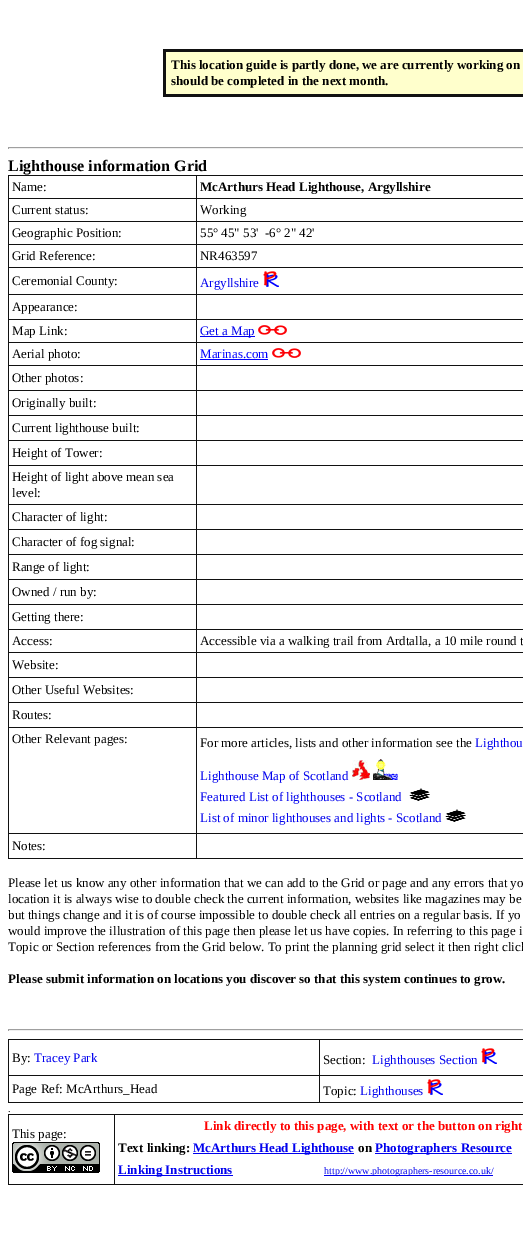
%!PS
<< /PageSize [523 1249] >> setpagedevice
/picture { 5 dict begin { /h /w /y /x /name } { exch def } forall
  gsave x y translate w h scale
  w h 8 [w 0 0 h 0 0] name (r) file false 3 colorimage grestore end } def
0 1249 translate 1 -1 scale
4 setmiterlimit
1 setgray
0 0 523 1249 rectfill
1 1 0.8 setrgbcolor
166 52 357 42 rectfill
0.067 setgray
163 49 360 3 rectfill
163 94 360 3 rectfill
163 49 3 48 rectfill
/LiberationSerif-Bold [13 0 0 -13 0 0] selectfont
0 setgray
171 69 moveto (This location guide is partly done, we are currently working on) show
171 85 moveto (should be completed in the next month.) show
0.624 setgray
8 147 515 1 rectfill
0.933 setgray
8 148 515 1 rectfill
0.624 setgray
8 147 1 2 rectfill
/LiberationSerif-Bold [16 0 0 -16 0 0] selectfont
0 setgray
8 171 moveto (Lighthouse information Grid) show
0.067 setgray
8 175 515 1 rectfill
8 858 515 1 rectfill
8 175 1 684 rectfill
/LiberationSerif-Regular [13 0 0 -13 0 0] selectfont
0 setgray
12 191 moveto (Name:) show
0.067 setgray
196 198 327 1 rectfill
196 221 327 1 rectfill
196 244 327 1 rectfill
196 267 327 1 rectfill
196 294 327 1 rectfill
196 319 327 1 rectfill
196 342 327 1 rectfill
196 365 327 1 rectfill
196 390 327 1 rectfill
196 415 327 1 rectfill
196 440 327 1 rectfill
196 465 327 1 rectfill
196 504 327 1 rectfill
196 529 327 1 rectfill
196 554 327 1 rectfill
196 579 327 1 rectfill
196 604 327 1 rectfill
196 629 327 1 rectfill
196 652 327 1 rectfill
196 677 327 1 rectfill
196 702 327 1 rectfill
196 727 327 1 rectfill
196 833 327 1 rectfill
196 833 1 26 rectfill
8 833 189 1 rectfill
196 727 1 107 rectfill
8 727 189 1 rectfill
196 702 1 26 rectfill
8 702 189 1 rectfill
196 677 1 26 rectfill
8 677 189 1 rectfill
196 652 1 26 rectfill
8 652 189 1 rectfill
196 629 1 24 rectfill
8 629 189 1 rectfill
196 604 1 26 rectfill
8 604 189 1 rectfill
196 579 1 26 rectfill
8 579 189 1 rectfill
196 554 1 26 rectfill
8 554 189 1 rectfill
196 529 1 26 rectfill
8 529 189 1 rectfill
196 504 1 26 rectfill
8 504 189 1 rectfill
196 465 1 40 rectfill
8 465 189 1 rectfill
196 440 1 26 rectfill
8 440 189 1 rectfill
196 415 1 26 rectfill
8 415 189 1 rectfill
196 390 1 26 rectfill
8 390 189 1 rectfill
196 365 1 26 rectfill
8 365 189 1 rectfill
196 342 1 24 rectfill
8 342 189 1 rectfill
196 319 1 24 rectfill
8 319 189 1 rectfill
196 294 1 26 rectfill
8 294 189 1 rectfill
196 267 1 28 rectfill
8 267 189 1 rectfill
196 244 1 24 rectfill
8 244 189 1 rectfill
196 221 1 24 rectfill
8 221 189 1 rectfill
196 198 1 24 rectfill
8 198 189 1 rectfill
196 175 1 24 rectfill
/LiberationSerif-Bold [13 0 0 -13 0 0] selectfont
0 setgray
200 191 moveto (McArthurs Head Lighthouse, Argyllshire) show
/LiberationSerif-Regular [13 0 0 -13 0 0] selectfont
12 214 moveto (Current status:) show
200 214 moveto (Working) show
12 237 moveto (Geographic Position:) show
200 237 moveto (55° 45" 53'  -6° 2" 42') show
12 260 moveto (Grid Reference:) show
200 260 moveto (NR463597) show
12 285 moveto (Ceremonial County:) show
0 0 0.933 setrgbcolor
200 287 moveto (Argyllshire) show
(img1.rgb) 263 271 16 16 picture
0 setgray
12 311 moveto (Appearance:) show
12 335 moveto (Map Link:) show
0 0 0.933 setrgbcolor
200 336 55 1 rectfill
200 335 moveto (Get a Map) show
(img2.rgb) 258 325 29 10 picture
0 setgray
12 358 moveto (Aerial photo:) show
0 0 1 setrgbcolor
200 358 moveto (Marinas.com) show
200 359 68 1 rectfill
(img2.rgb) 272 348 29 10 picture
0 setgray
12 382 moveto (Other photos:) show
12 407 moveto (Originally built:) show
12 432 moveto (Current lighthouse built:) show
12 457 moveto (Height of Tower:) show
12 481 moveto (Height of light above mean sea) show
12 497 moveto (level:) show
12 521 moveto (Character of light:) show
12 546 moveto (Character of fog signal:) show
12 571 moveto (Range of light:) show
12 596 moveto (Owned / run by:) show
12 621 moveto (Getting there:) show
12 645 moveto (Access:) show
200 645 moveto (Accessible via a walking trail from Ardtalla, a 10 mile round t) show
12 669 moveto (Website:) show
12 694 moveto (Other Useful Websites:) show
12 719 moveto (Routes:) show
12 743 moveto (Other Relevant pages:) show
200 747 moveto (For more articles, lists and other information see the) show
0 0 0.933 setrgbcolor
475 747 moveto (Lighthou) show
200 780 moveto (Lighthouse Map of Scotland) show
(img3.rgb) 352 760 18 20 picture
(img4.rgb) 373 759 25 21 picture
200 801 moveto (Featured List of lighthouses - Scotland) show
(img5.rgb) 409 788 21 13 picture
200 822 moveto (List of minor lighthouses and lights - Scotland) show
(img5.rgb) 445 809 21 13 picture
0 setgray
12 850 moveto (Notes:) show
8 887 moveto (Please let us know any other information that we can add to the Grid or page and any errors that yo) show
8 903 moveto (location it is always wise to double check the current information, websites like magazines may be) show
8 919 moveto (but things change and it is of course impossible to double check all entries on a regular basis. If yo) show
8 935 moveto (would improve the illustration of this page then please let us have copies. In referring to this page i) show
8 951 moveto (Topic or Section references from the Grid below. To print the planning grid select it then right click) show
/LiberationSerif-Bold [13 0 0 -13 0 0] selectfont
8 983 moveto (Please submit information on locations you discover so that this system continues to grow.) show
0.624 setgray
8 1029 515 1 rectfill
0.933 setgray
8 1030 515 1 rectfill
0.624 setgray
8 1029 1 2 rectfill
0.067 setgray
8 1039 515 1 rectfill
8 1102 515 1 rectfill
8 1039 1 64 rectfill
/LiberationSerif-Regular [13 0 0 -13 0 0] selectfont
0 setgray
12 1062 moveto (By:) show
0 0 0.933 setrgbcolor
34 1062 moveto (Tracey Park) show
0.067 setgray
319 1075 204 1 rectfill
319 1075 1 28 rectfill
8 1075 312 1 rectfill
319 1039 1 37 rectfill
0 setgray
323 1064 moveto (Section:) show
0 0 0.933 setrgbcolor
372 1064 moveto (Lighthouses Section) show
(img1.rgb) 481 1048 16 16 picture
0 setgray
12 1093 moveto (Page Ref: McArthurs_Head) show
323 1095 moveto (Topic:) show
0 0 0.933 setrgbcolor
360 1095 moveto (Lighthouses) show
(img1.rgb) 427 1079 16 16 picture
/LiberationSerif-Regular [10 0 0 -10 0 0] selectfont
0 setgray
8 1112 moveto (.) show
0.067 setgray
8 1114 515 1 rectfill
8 1184 515 1 rectfill
8 1114 1 71 rectfill
/LiberationSerif-Regular [13 0 0 -13 0 0] selectfont
0 setgray
12 1138 moveto (This page:) show
(img6.rgb) 12 1142 88 31 picture
0.067 setgray
114 1114 1 71 rectfill
/LiberationSerif-Bold [13 0 0 -13 0 0] selectfont
1 0 0 setrgbcolor
204 1130 moveto (Link directly to this page, with text or the button on right) show
0 setgray
118 1152 moveto (Text linking:) show
0 0 0.933 setrgbcolor
193 1153 161 1 rectfill
193 1152 moveto (McArthurs Head Lighthouse) show
0 setgray
358 1152 moveto (on) show
0 0 0.933 setrgbcolor
375 1153 137 1 rectfill
375 1152 moveto (Photographers Resource) show
118 1175 115 1 rectfill
118 1174 moveto (Linking Instructions) show
324 1175 169 1 rectfill
/LiberationSerif-Regular [10 0 0 -10 0 0] selectfont
324 1174 moveto (http://www.photographers-resource.co.uk/) show
showpage
